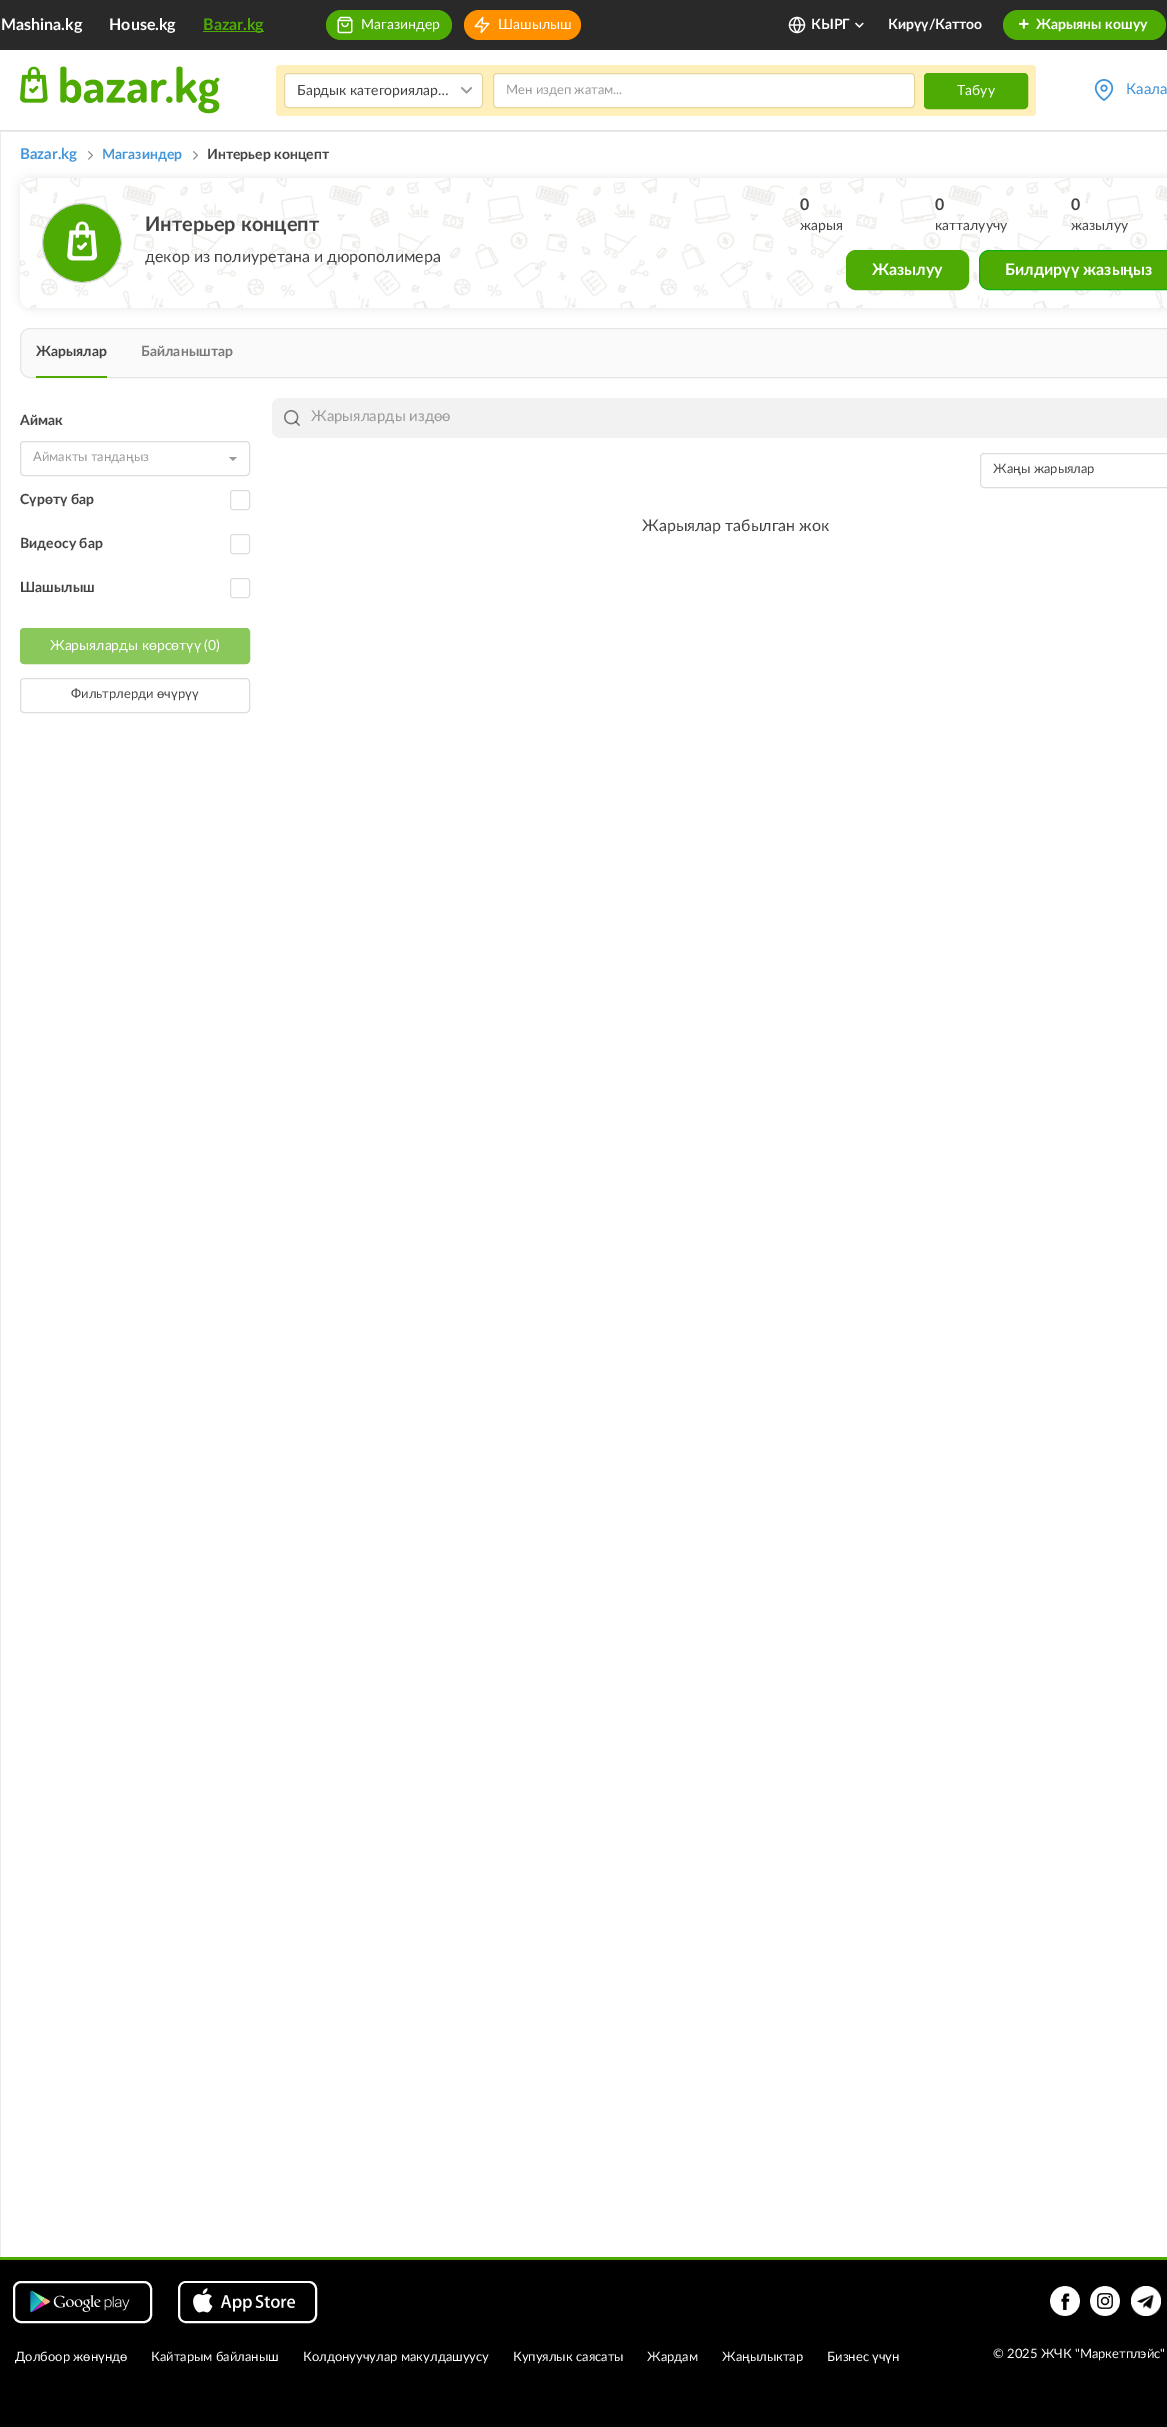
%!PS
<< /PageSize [1167 2427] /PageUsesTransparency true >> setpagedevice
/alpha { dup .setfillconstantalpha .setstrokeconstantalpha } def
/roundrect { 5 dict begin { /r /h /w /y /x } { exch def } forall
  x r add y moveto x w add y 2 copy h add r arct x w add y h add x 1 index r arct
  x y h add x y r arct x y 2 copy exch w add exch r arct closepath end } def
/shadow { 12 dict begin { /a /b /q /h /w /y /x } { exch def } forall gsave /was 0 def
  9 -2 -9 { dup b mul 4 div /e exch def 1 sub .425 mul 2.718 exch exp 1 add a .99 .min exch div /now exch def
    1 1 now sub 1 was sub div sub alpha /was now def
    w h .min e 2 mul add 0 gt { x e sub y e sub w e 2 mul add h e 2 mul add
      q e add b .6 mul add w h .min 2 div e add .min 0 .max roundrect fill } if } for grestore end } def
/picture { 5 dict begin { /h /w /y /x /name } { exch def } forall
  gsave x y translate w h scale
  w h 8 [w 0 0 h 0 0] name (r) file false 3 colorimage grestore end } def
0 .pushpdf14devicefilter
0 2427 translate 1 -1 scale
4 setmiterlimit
1 setgray
0 0 1167 2427 rectfill
0.161 setgray
0 0 1167 50 rectfill
/Lato-Bold [16 0 0 -16 0 0] selectfont
1 setgray
1 30 moveto (Mashina.kg) show
109 30 moveto (House.kg) show
0.302 0.671 0.016 setrgbcolor
203 31 61 1 rectfill
203 30 moveto (Bazar.kg) show
326 10 126 30 15 roundrect fill
(img1.rgb) 337 16 16 18 picture
/Lato-Regular [14 0 0 -14 0 0] selectfont
1 setgray
361 29 moveto (Магазиндер) show
1 0.565 0 setrgbcolor
464 10 117 30 15 roundrect fill
(img2.rgb) 474 16 16 18 picture
1 setgray
498 29 moveto (Шашылыш) show
(img3.rgb) 788 16 18 18 picture
/Lato-Bold [14 0 0 -14 0 0] selectfont
811 29 moveto (КЫРГ) show
(img4.rgb) 855 22 9 6 picture
888 29 moveto (Кирүү/Каттоо) show
0.302 0.671 0.016 setrgbcolor
1003 10 163 30 15 roundrect fill
(img5.rgb) 1019 19 10 10 picture
1 setgray
1036 29 moveto (Жарыяны кошуу) show
0.882 setgray
0 130 1167 1 rectfill
(img6.rgb) 20 66 200 48 picture
1 0.941 0.733 setrgbcolor
276 65 760 51 4 roundrect fill
1 setgray
284 73 199 35 4 roundrect fill
(img7.rgb) 461 87 12 7 picture
0.906 0.839 0.612 setrgbcolor
284.5 73.5 198 34 3.5 roundrect stroke
/Lato-Regular [14 0 0 -14 0 0] selectfont
0.267 setgray
297 95 moveto (Бардык категориялар…) show
1 setgray
493.5 73.5 421 34 3.5 roundrect gsave fill grestore
0.906 0.839 0.612 setrgbcolor
stroke
/Lato-Regular [13 0 0 -13 0 0] selectfont
0.6 setgray
506 94 moveto (Мен издеп жатам...) show
0.302 0.671 0.016 setrgbcolor
924.5 73.5 103 35 3.5 roundrect gsave fill grestore
stroke
/Lato-Regular [14 0 0 -14 0 0] selectfont
1 setgray
957 95 moveto (Табуу) show
(img8.rgb) 1094 79 20 22 picture
/Lato-Regular [15 0 0 -15 0 0] selectfont
0.212 0.557 0.847 setrgbcolor
1126 94 moveto (Каала) show
0.922 setgray
0 131 1 2126 rectfill
0.925 setgray
0 131 1167 1 rectfill
/Lato-Bold [15 0 0 -15 0 0] selectfont
0.259 0.584 0.851 setrgbcolor
20 159 moveto (Bazar.kg) show
(img9.rgb) 88 151 5 9 picture
/Lato-Bold [14 0 0 -14 0 0] selectfont
102 159 moveto (Магазиндер) show
(img9.rgb) 193 151 5 9 picture
0.267 setgray
207 159 moveto (Интерьер концепт) show
0 setgray
20 178 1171 130 10 4.5 0.1 shadow
(img10.rgb) 20 178 1147 130 picture
(img11.rgb) 43 204 78 78 picture
0.835 0.831 0.831 setrgbcolor
newpath 82 243 39.5 0 360 arc closepath stroke
/Lato-Bold [20 0 0 -20 0 0] selectfont
0.267 setgray
145 231 moveto (Интерьер концепт) show
/Lato-Regular [16 0 0 -16 0 0] selectfont
145 262 moveto (декор из полиуретана и дюрополимера) show
/Lato-Bold [16 0 0 -16 0 0] selectfont
800 210 moveto (0) show
/Lato-Regular [14 0 0 -14 0 0] selectfont
800 230 moveto (жарыя) show
/Lato-Bold [16 0 0 -16 0 0] selectfont
935 210 moveto (0) show
/Lato-Regular [14 0 0 -14 0 0] selectfont
935 230 moveto (катталуучу) show
/Lato-Bold [16 0 0 -16 0 0] selectfont
1071 210 moveto (0) show
/Lato-Regular [14 0 0 -14 0 0] selectfont
1071 230 moveto (жазылуу) show
0.302 0.671 0.016 setrgbcolor
846.5 250.5 122 39 9.5 roundrect gsave fill grestore
stroke
/Lato-Bold [16 0 0 -16 0 0] selectfont
1 setgray
872 275 moveto (Жазылуу) show
0.302 0.671 0.016 setrgbcolor
979.5 250.5 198 39 9.5 roundrect gsave fill grestore
0.063 0.686 0.063 setrgbcolor
stroke
1 setgray
1005 275 moveto (Билдирүү жазыңыз) show
0.98 setgray
20.5 328.5 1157 49 9.5 roundrect gsave fill grestore
0.898 setgray
stroke
/Lato-Bold [14 0 0 -14 0 0] selectfont
0.267 setgray
36 356 moveto (Жарыялар) show
0.302 0.671 0.016 setrgbcolor
36 376 71 2 rectfill
0.478 setgray
141 356 moveto (Байланыштар) show
0.267 setgray
20 425 moveto (Аймак) show
0.867 setgray
20.5 441.5 229 34 3.5 roundrect stroke
/Lato-Regular [13 0 0 -13 0 0] selectfont
0.6 setgray
33 461 moveto (Аймакты тандаңыз) show
newpath 229 457 moveto 237 457 lineto 233 461 lineto closepath fill
/Lato-Bold [14 0 0 -14 0 0] selectfont
0.267 setgray
20 504 moveto (Сүрөтү бар) show
0.867 setgray
230.5 490.5 19 19 2.5 roundrect stroke
0.267 setgray
20 548 moveto (Видеосу бар) show
0.867 setgray
230.5 534.5 19 19 2.5 roundrect stroke
0.267 setgray
20 592 moveto (Шашылыш) show
0.867 setgray
230.5 578.5 19 19 2.5 roundrect stroke
0.545 0.784 0.361 setrgbcolor
20.5 628.5 229 35 3.5 roundrect gsave fill grestore
stroke
/Lato-Regular [14 0 0 -14 0 0] selectfont
1 setgray
50 650 moveto (Жарыяларды көрсөтүү \(0\)) show
0.867 setgray
20.5 678.5 229 34 3.5 roundrect stroke
/Lato-Regular [13 0 0 -13 0 0] selectfont
0.267 setgray
71 698 moveto (Фильтрлерди өчүрүү) show
0.949 setgray
272 398 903 40 8 roundrect fill
(img12.rgb) 284 410 16 16 picture
/Lato-Regular [15 0 0 -15 0 0] selectfont
0.6 setgray
311 421 moveto (Жарыяларды издөө) show
0.867 setgray
980.5 453.5 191 34 3.5 roundrect stroke
/Lato-Regular [13 0 0 -13 0 0] selectfont
0.267 setgray
993 473 moveto (Жаңы жарыялар) show
/Lato-Regular [16 0 0 -16 0 0] selectfont
642 531 moveto (Жарыялар табылган жок) show
0 setgray
0 2260 1167 167 rectfill
0.302 0.671 0.016 setrgbcolor
0 2257 1167 3 rectfill
1 setgray
2 setlinewidth
14 2282 137 40 7 roundrect stroke
(img13.rgb) 30 2290 100 23 picture
179 2282 137 40 7 roundrect stroke
(img14.rgb) 181 2283 129 38 picture
(img15.rgb) 1050 2286 30 30 picture
(img16.rgb) 1090 2286 30 30 picture
(img17.rgb) 1131 2286 30 30 picture
/Lato-Regular [13 0 0 -13 0 0] selectfont
15 2361 moveto (Долбоор жөнүндө) show
151 2361 moveto (Кайтарым байланыш) show
303 2361 moveto (Колдонуучулар макулдашуусу) show
513 2361 moveto (Купуялык саясаты) show
647 2361 moveto (Жардам) show
722 2361 moveto (Жаңылыктар) show
827 2361 moveto (Бизнес үчүн) show
993 2358 moveto (© 2025 ЖЧК "Маркетплэйс") show
.poppdf14devicefilter showpage
